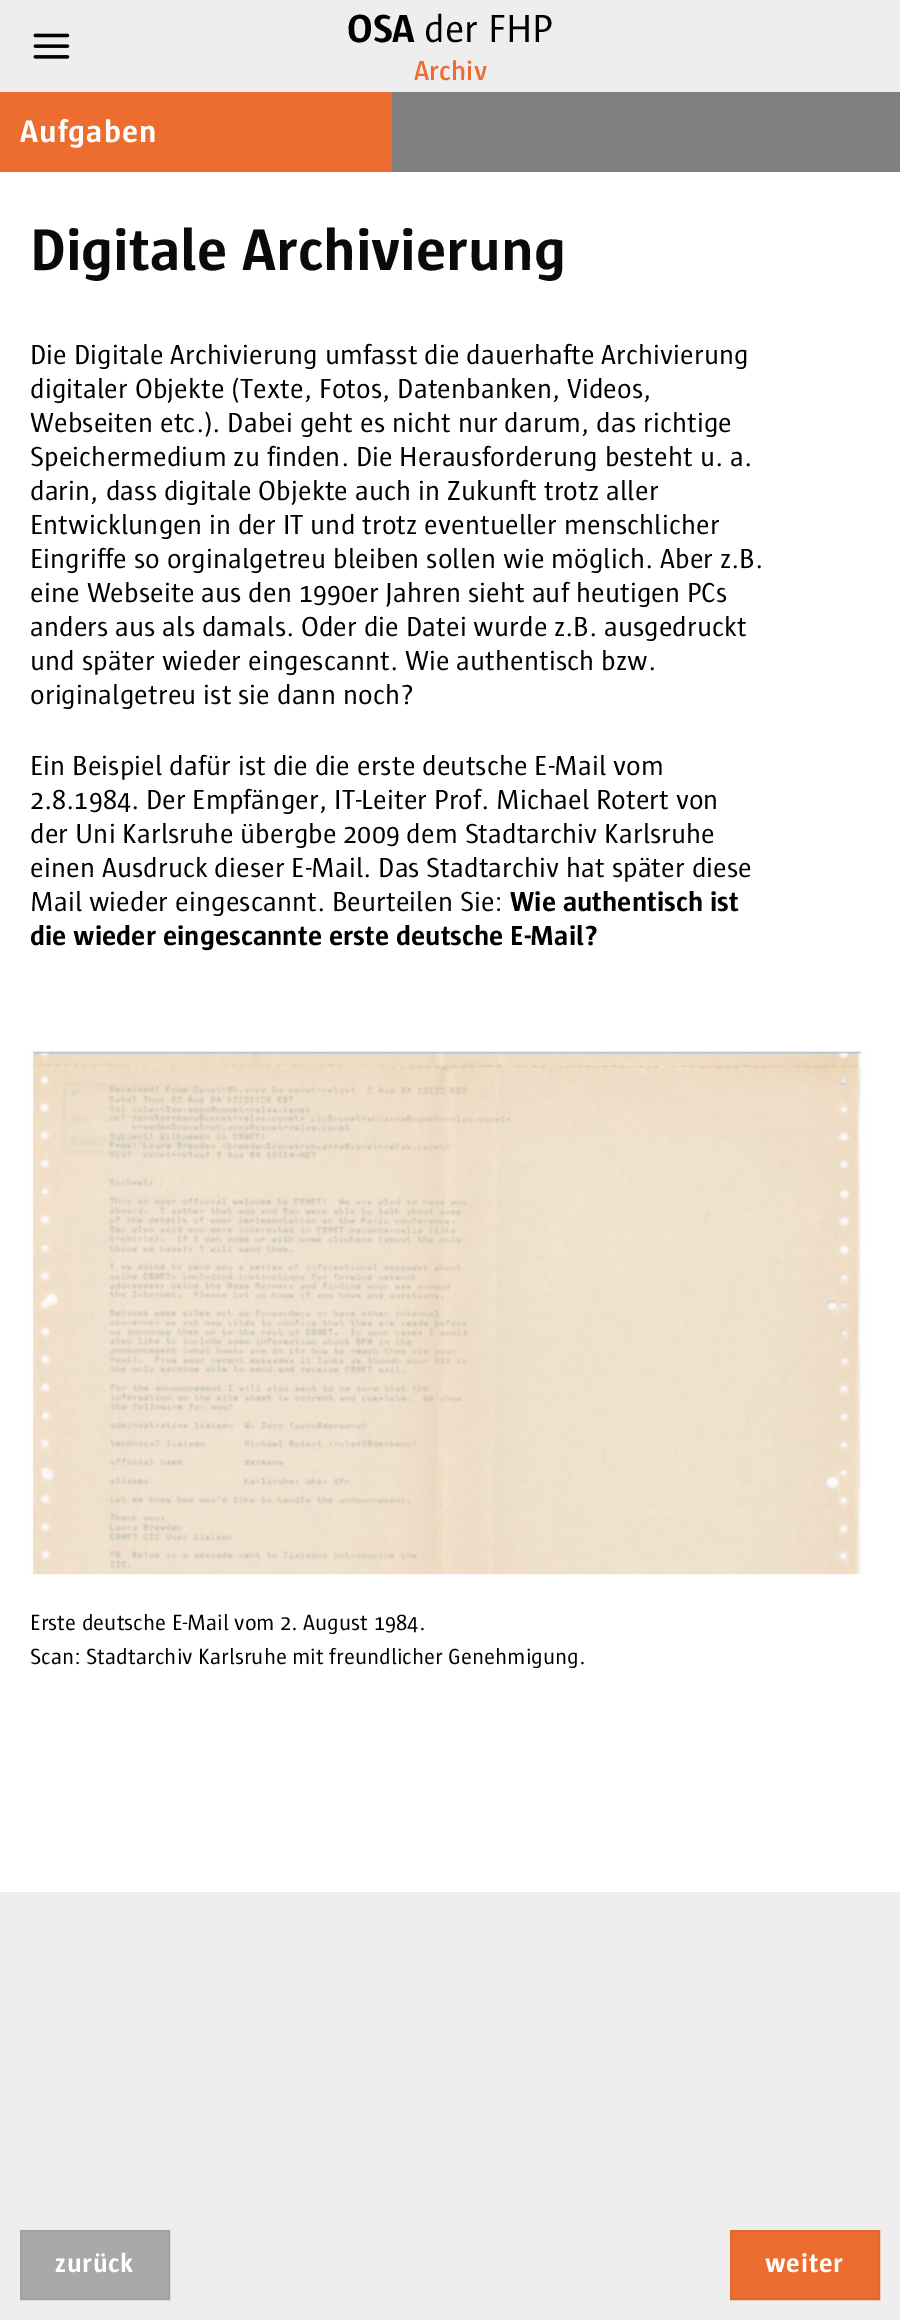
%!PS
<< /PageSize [900 2320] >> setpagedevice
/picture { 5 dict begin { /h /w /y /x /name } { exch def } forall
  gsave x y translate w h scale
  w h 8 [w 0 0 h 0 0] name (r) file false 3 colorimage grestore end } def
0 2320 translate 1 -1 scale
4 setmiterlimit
0.933 setgray
0 0 900 2320 rectfill
1 setgray
0 172 900 1720 rectfill
(img1.rgb) 33 33 37 26 picture
/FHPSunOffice-Bold [40 0 0 -40 0 0] selectfont
0 setgray
347 42 moveto (OSA) show
/FHPSunOffice-Regular [40 0 0 -40 0 0] selectfont
424 42 moveto (der FHP) show
/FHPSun-SemiBold [28 0 0 -28 0 0] selectfont
0.925 0.427 0.184 setrgbcolor
414 80 moveto (Archiv) show
0.502 setgray
392 92 508 80 rectfill
0.925 0.427 0.184 setrgbcolor
0 92 392 80 rectfill
/FHPSunOffice-Bold [32 0 0 -32 0 0] selectfont
1 setgray
20 142 moveto 1 0 (Aufgaben) ashow
/FHPSunOffice-Bold [60 0 0 -60 0 0] selectfont
0.039 setgray
30 270 moveto (Digitale Archivierung) show
/FHPSunOffice-Regular [28.15 0 0 -28.15 0 0] selectfont
0 setgray
30 364 moveto (Die Digitale Archivierung umfasst die dauerhafte Archivierung) show
30 398 moveto (digitaler Objekte \(Texte, Fotos, Datenbanken, Videos,) show
30 432 moveto (Webseiten etc.\). Dabei geht es nicht nur darum, das richtige) show
30 466 moveto (Speichermedium zu finden. Die Herausforderung besteht u. a.) show
30 500 moveto (darin, dass digitale Objekte auch in Zukunft trotz aller) show
30 534 moveto (Entwicklungen in der IT und trotz eventueller menschlicher) show
30 568 moveto (Eingriffe so orginalgetreu bleiben sollen wie möglich. Aber z.B.) show
30 602 moveto (eine Webseite aus den 1990er Jahren sieht auf heutigen PCs) show
30 636 moveto (anders aus als damals. Oder die Datei wurde z.B. ausgedruckt) show
30 670 moveto (und später wieder eingescannt. Wie authentisch bzw.) show
30 704 moveto (originalgetreu ist sie dann noch?) show
30 775 moveto (Ein Beispiel dafür ist die die erste deutsche E-Mail vom) show
30 809 moveto (2.8.1984. Der Empfänger, IT-Leiter Prof. Michael Rotert von) show
30 843 moveto (der Uni Karlsruhe übergbe 2009 dem Stadtarchiv Karlsruhe) show
30 877 moveto (einen Ausdruck dieser E-Mail. Das Stadtarchiv hat später diese) show
30 911 moveto (Mail wieder eingescannt. Beurteilen Sie:) show
/FHPSunOffice-Bold [28.15 0 0 -28.15 0 0] selectfont
510 911 moveto (Wie authentisch ist) show
30 945 moveto (die wieder eingescannte erste deutsche E-Mail?) show
(img2.rgb) 30 1050 840 525 picture
/FHPSunOffice-Regular [22.5 0 0 -22.5 0 0] selectfont
30 1630 moveto (Erste deutsche E-Mail vom 2. August 1984.) show
30 1664 moveto (Scan: Stadtarchiv Karlsruhe mit freundlicher Genehmigung.) show
0.663 setgray
newpath 21 2231 moveto 169 2231 lineto 169 2299 lineto 21 2299 lineto closepath gsave fill grestore
0.631 setgray
2 setlinewidth
stroke
/FHPSunOffice-Bold [27 0 0 -27 0 0] selectfont
1 setgray
55 2272 moveto 0.75 0 (zurück) ashow
0.925 0.427 0.184 setrgbcolor
newpath 731 2231 moveto 879 2231 lineto 879 2299 lineto 731 2299 lineto closepath gsave fill grestore
0.878 0.408 0.176 setrgbcolor
stroke
1 setgray
765 2272 moveto 0.75 0 (weiter) ashow
showpage
